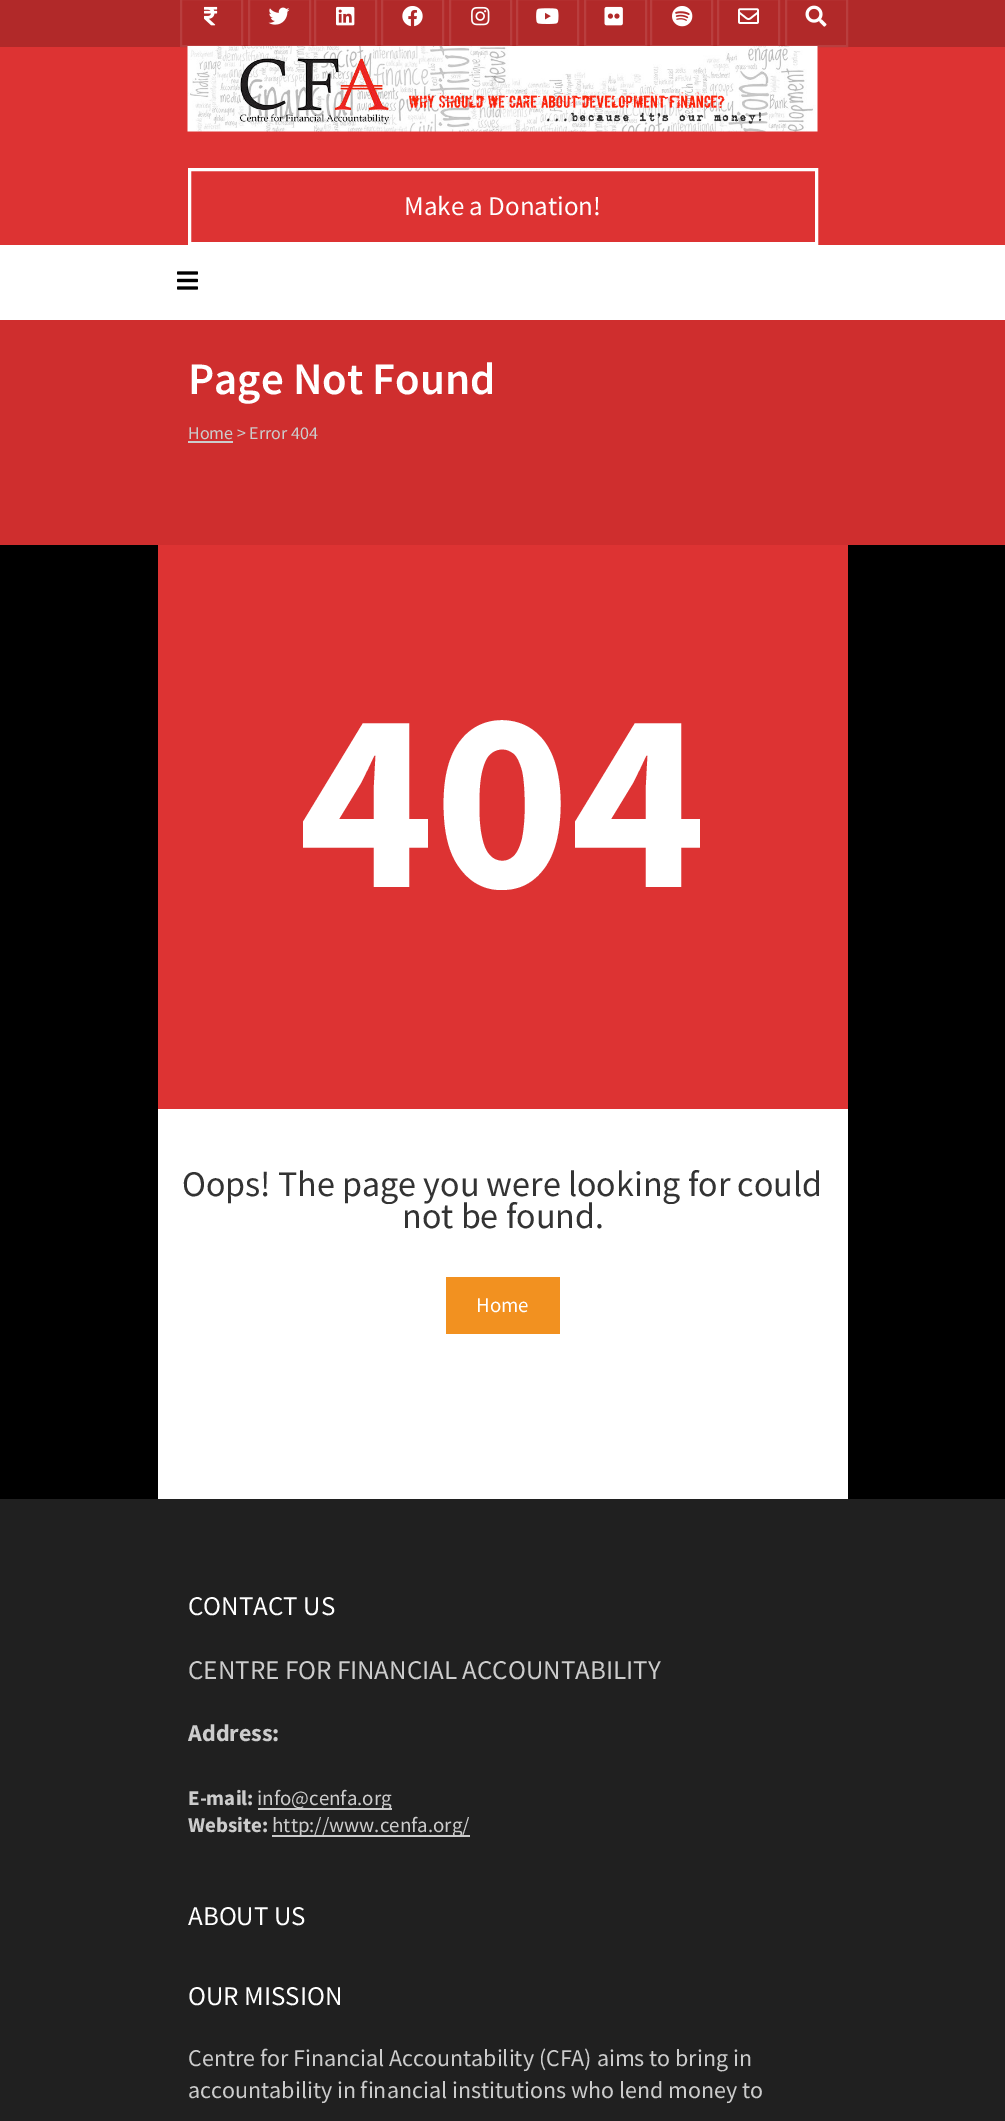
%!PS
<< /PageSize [1005 2121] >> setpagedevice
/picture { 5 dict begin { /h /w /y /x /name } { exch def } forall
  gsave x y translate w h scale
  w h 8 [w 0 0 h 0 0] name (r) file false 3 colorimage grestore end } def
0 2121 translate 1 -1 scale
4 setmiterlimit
0 setgray
0 0 1005 2121 rectfill
0.867 0.2 0.2 setrgbcolor
0 47 1005 198 rectfill
0.694 0.161 0.161 setrgbcolor
0 0 1005 47 rectfill
0.725 0.243 0.243 setrgbcolor
2 setlinewidth
181 -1 61 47 rectstroke
(img1.rgb) 204 6 14 20 picture
249 -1 61 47 rectstroke
(img2.rgb) 268 7 22 18 picture
315 -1 61 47 rectstroke
(img3.rgb) 336 6 19 20 picture
382 -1 61 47 rectstroke
(img4.rgb) 402 6 21 21 picture
450 -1 61 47 rectstroke
(img5.rgb) 471 6 19 20 picture
517 -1 61 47 rectstroke
(img6.rgb) 536 8 23 16 picture
585 -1 61 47 rectstroke
(img7.rgb) 604 6 19 20 picture
651 -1 61 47 rectstroke
(img8.rgb) 672 6 21 21 picture
718 -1 61 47 rectstroke
(img9.rgb) 738 8 21 16 picture
786 -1 61 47 rectstroke
(img10.rgb) 805 5 22 22 picture
(img11.rgb) 187 46 631 86 picture
1 setgray
3 setlinewidth
189.5 169.5 627 74 rectstroke
/SourceSansPro-Regular [27 0 0 -27 0 0] selectfont
404 215 moveto (Make a Donation!) show
0 245 1005 75 rectfill
(img12.rgb) 177 271 21 19 picture
0.812 0.18 0.18 setrgbcolor
0 320 1005 225 rectfill
/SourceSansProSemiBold-SemiBold [45 0 0 -45 0 0] selectfont
1 setgray
188 394 moveto (Page Not Found) show
/SourceSansPro-Regular [18 0 0 -18 0 0] selectfont
0.8 setgray
188 439 moveto (Home > Error 404) show
188 441 45 2 rectfill
1 setgray
158 1109 690 390 rectfill
0.867 0.2 0.2 setrgbcolor
158 545 690 564 rectfill
/SourceSansPro-Bold [258 0 0 -258 0 0] selectfont
1 setgray
298 887 moveto (404) show
/SourceSansPro-Regular [36 0 0 -36 0 0] selectfont
0.2 setgray
182 1196 moveto (Oops! The page you were looking for could) show
402 1228 moveto (not be found.) show
0.949 0.569 0.125 setrgbcolor
446 1277 114 57 rectfill
/SourceSansPro-Regular [21 0 0 -21 0 0] selectfont
1 setgray
476 1312 moveto (Home) show
0.125 setgray
0 1499 1005 622 rectfill
/SourceSansPro-Regular [27 0 0 -27 0 0] selectfont
1 setgray
188 1615 moveto (CONTACT US) show
0.8 setgray
188 1679 moveto (CENTRE FOR FINANCIAL ACCOUNTABILITY) show
/SourceSansPro-Bold [24 0 0 -24 0 0] selectfont
188 1741 moveto (Address:) show
/SourceSansPro-Bold [21 0 0 -21 0 0] selectfont
188 1805 moveto (E-mail:) show
258 1808 134 2 rectfill
/SourceSansPro-Regular [21 0 0 -21 0 0] selectfont
257 1805 moveto (info@cenfa.org) show
/SourceSansPro-Bold [21 0 0 -21 0 0] selectfont
188 1832 moveto (Website:) show
272 1835 198 2 rectfill
/SourceSansPro-Regular [21 0 0 -21 0 0] selectfont
272 1832 moveto (http://www.cenfa.org/) show
/SourceSansPro-Regular [27 0 0 -27 0 0] selectfont
1 setgray
188 1925 moveto (ABOUT US) show
188 2005 moveto (OUR MISSION) show
/SourceSansPro-Regular [24 0 0 -24 0 0] selectfont
0.8 setgray
188 2066 moveto (Centre for Financial Accountability \(CFA\) aims to bring in) show
188 2098 moveto (accountability in financial institutions who lend money to) show
showpage
